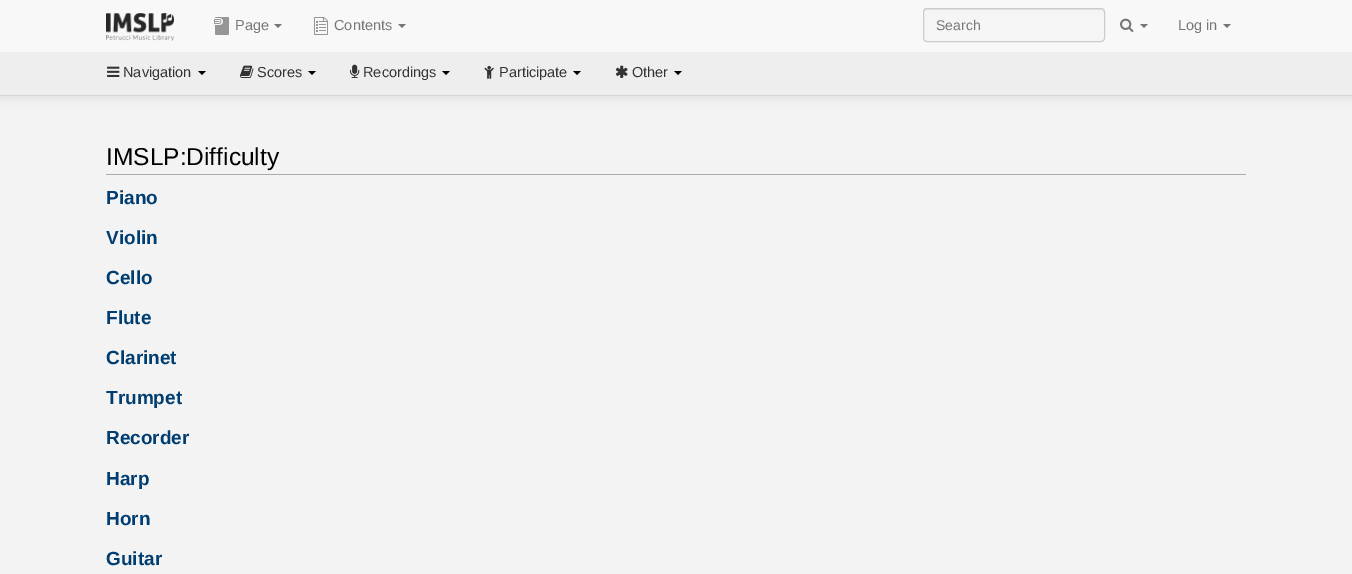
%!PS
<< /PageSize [1352 574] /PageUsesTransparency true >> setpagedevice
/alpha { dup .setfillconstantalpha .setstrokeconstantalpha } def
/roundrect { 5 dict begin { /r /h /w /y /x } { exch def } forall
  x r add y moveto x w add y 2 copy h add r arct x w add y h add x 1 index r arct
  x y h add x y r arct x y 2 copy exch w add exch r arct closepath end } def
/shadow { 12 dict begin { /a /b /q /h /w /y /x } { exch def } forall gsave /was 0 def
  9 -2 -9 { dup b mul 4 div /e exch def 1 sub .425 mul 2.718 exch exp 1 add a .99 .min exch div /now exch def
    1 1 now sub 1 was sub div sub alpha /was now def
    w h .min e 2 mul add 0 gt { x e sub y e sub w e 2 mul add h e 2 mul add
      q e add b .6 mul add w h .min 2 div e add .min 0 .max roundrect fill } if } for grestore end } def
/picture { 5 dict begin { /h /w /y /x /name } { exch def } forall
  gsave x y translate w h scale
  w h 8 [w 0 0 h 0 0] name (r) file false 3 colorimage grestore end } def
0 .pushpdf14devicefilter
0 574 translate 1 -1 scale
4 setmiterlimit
0.953 setgray
0 0 1352 574 rectfill
0 setgray
0 53 1352 44 0 5 0.1 shadow
0.973 setgray
0 0 1352 52 rectfill
(img1.rgb) 106 13 68 28 picture
(img2.rgb) 214 17 15 18 picture
/LiberationSans-Regular [14.5 0 0 -14.5 0 0] selectfont
0.467 setgray
235 30 moveto (Page) show
newpath 274 24 moveto 282 24 lineto 278 28 lineto closepath fill
(img3.rgb) 314 17 14 18 picture
334 30 moveto (Contents) show
newpath 398 24 moveto 406 24 lineto 402 28 lineto closepath fill
0.961 setgray
923 8 182 34 4 roundrect fill
0.89 setgray
newpath 927 10 moveto 1102 10 lineto 1103 11 lineto 1104 13 lineto 1104 12 lineto 1104 10 1103 9 1101 9 curveto 927 9 lineto 925 9 924 10 924 12 curveto 924 13 lineto 924 11 925 10 927 10 curveto closepath fill
0.8 setgray
923.5 8.5 181 33 3.5 roundrect stroke
/LiberationSans-Regular [14 0 0 -14 0 0] selectfont
0.467 setgray
936 30 moveto (Search) show
(img4.rgb) 1120 18 14 14 picture
newpath 1140 24 moveto 1148 24 lineto 1144 28 lineto closepath fill
/LiberationSans-Regular [14.5 0 0 -14.5 0 0] selectfont
1178 30 moveto (Log in) show
newpath 1223 24 moveto 1231 24 lineto 1227 28 lineto closepath fill
0.933 setgray
0 52 1352 43 rectfill
0.835 setgray
0 95 1352 1 rectfill
(img5.rgb) 107 66 13 11 picture
0.2 setgray
123 77 moveto (Navigation) show
0 setgray
newpath 198 71 moveto 206 71 lineto 202 75 lineto closepath fill
(img6.rgb) 240 65 14 13 picture
0.2 setgray
257 77 moveto (Scores) show
0 setgray
newpath 308 71 moveto 316 71 lineto 312 75 lineto closepath fill
(img7.rgb) 350 64 10 14 picture
0.2 setgray
363 77 moveto (Recordings) show
0 setgray
newpath 442 71 moveto 450 71 lineto 446 75 lineto closepath fill
(img8.rgb) 484 65 10 14 picture
0.2 setgray
499 77 moveto (Participate) show
0 setgray
newpath 573 71 moveto 581 71 lineto 577 75 lineto closepath fill
(img9.rgb) 616 65 12 13 picture
0.2 setgray
632 77 moveto (Other) show
0 setgray
newpath 674 71 moveto 682 71 lineto 678 75 lineto closepath fill
0.667 setgray
106 174 1140 1 rectfill
/LiberationSans-Regular [24.5 0 0 -24.5 0 0] selectfont
0 setgray
106 165 moveto (IMSLP:Difficulty) show
/LiberationSans-Bold [19 0 0 -19 0 0] selectfont
0 0.239 0.439 setrgbcolor
106 204 moveto (Piano) show
106 244 moveto (Violin) show
106 284 moveto (Cello) show
106 324 moveto (Flute) show
106 364 moveto (Clarinet) show
106 404 moveto (Trumpet) show
106 444 moveto (Recorder) show
106 485 moveto (Harp) show
106 525 moveto (Horn) show
106 565 moveto (Guitar) show
.poppdf14devicefilter showpage
